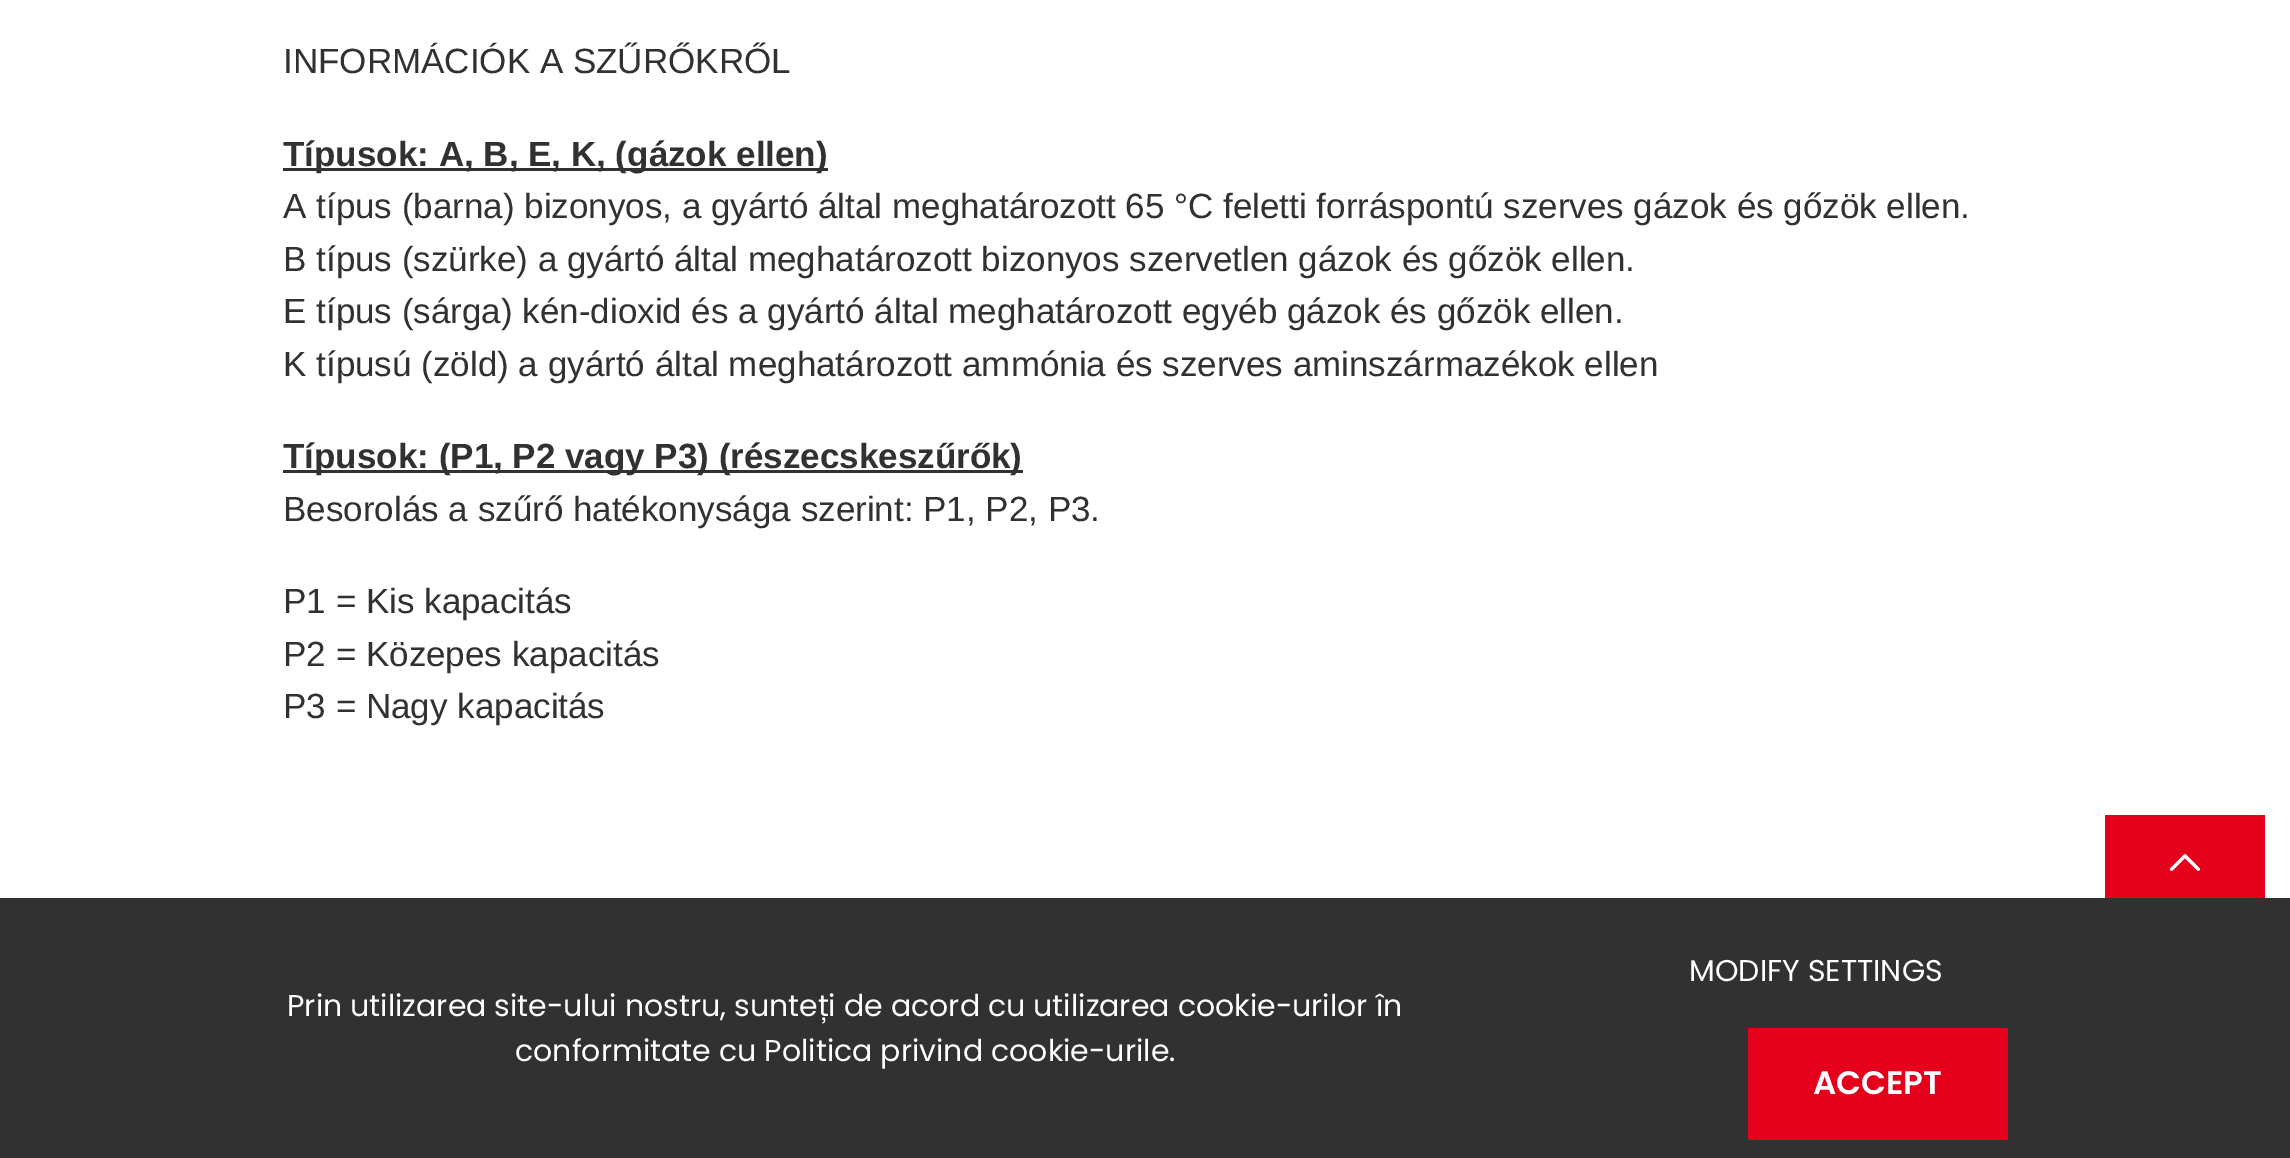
%!PS
<< /PageSize [2290 1158] >> setpagedevice
/picture { 5 dict begin { /h /w /y /x /name } { exch def } forall
  gsave x y translate w h scale
  w h 8 [w 0 0 h 0 0] name (r) file false 3 colorimage grestore end } def
0 1158 translate 1 -1 scale
4 setmiterlimit
1 setgray
0 0 2290 1158 rectfill
/LiberationSans-Regular [35 0 0 -35 0 0] selectfont
0.192 setgray
283 73 moveto (INFORMÁCIÓK A SZŰRŐKRŐL) show
283 168 545 3 rectfill
/LiberationSans-Bold [35 0 0 -35 0 0] selectfont
283 166 moveto (Típusok: A, B, E, K, \(gázok ellen\)) show
/LiberationSans-Regular [35 0 0 -35 0 0] selectfont
283 218 moveto (A típus \(barna\) bizonyos, a gyártó által meghatározott 65 °C feletti forráspontú szerves gázok és gőzök ellen.) show
283 271 moveto (B típus \(szürke\) a gyártó által meghatározott bizonyos szervetlen gázok és gőzök ellen.) show
283 323 moveto (E típus \(sárga\) kén-dioxid és a gyártó által meghatározott egyéb gázok és gőzök ellen.) show
283 376 moveto (K típusú \(zöld\) a gyártó által meghatározott ammónia és szerves aminszármazékok ellen) show
283 470 740 3 rectfill
/LiberationSans-Bold [35 0 0 -35 0 0] selectfont
283 468 moveto (Típusok: \(P1, P2 vagy P3\) \(részecskeszűrők\)) show
/LiberationSans-Regular [35 0 0 -35 0 0] selectfont
283 521 moveto (Besorolás a szűrő hatékonysága szerint: P1, P2, P3.) show
283 613 moveto (P1 = Kis kapacitás) show
283 666 moveto (P2 = Közepes kapacitás) show
283 718 moveto (P3 = Nagy kapacitás) show
0.898 0 0.11 setrgbcolor
2105 815 160 83 rectfill
(img1.rgb) 2170 854 30 17 picture
0.192 setgray
0 898 2290 260 rectfill
/Poppins-Regular [30 0 0 -30 0 0] selectfont
1 setgray
287 1016 moveto (Prin utilizarea site-ului nostru, sunteți de acord cu utilizarea cookie-urilor în) show
515 1061 moveto (conformitate cu Politica privind cookie-urile.) show
1689 981 moveto (MODIFY SETTINGS) show
0.898 0 0.11 setrgbcolor
1748 1028 260 112 rectfill
/Poppins-SemiBold [32.5 0 0 -32.5 0 0] selectfont
1 setgray
1813 1094 moveto (ACCEPT) show
showpage
